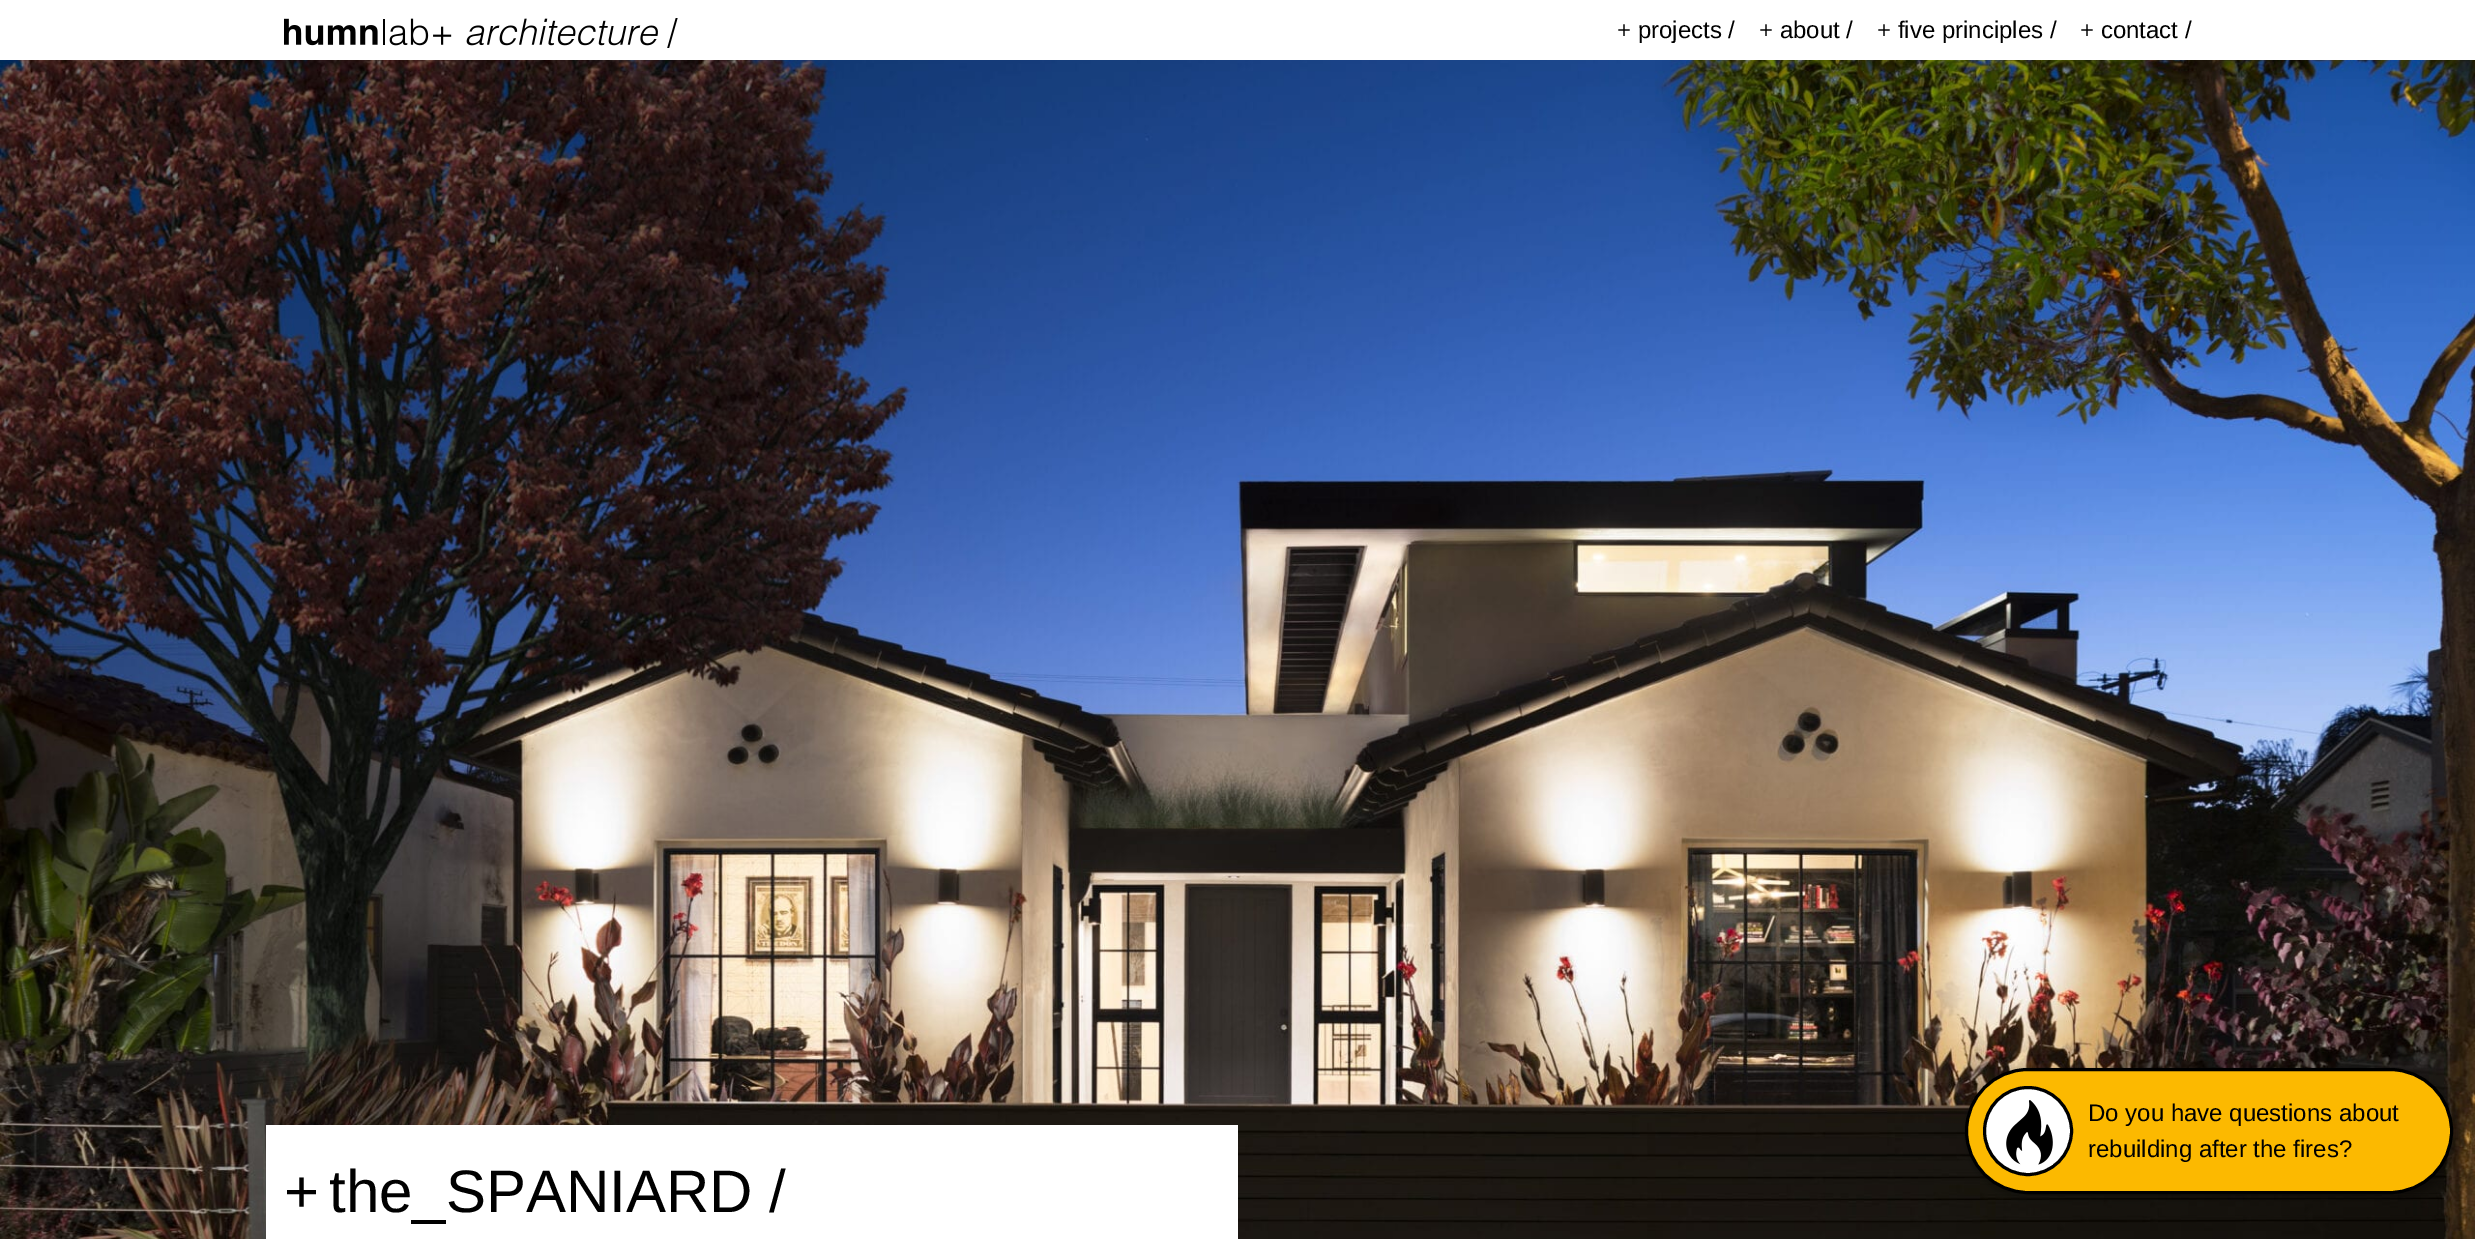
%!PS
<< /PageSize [2475 1239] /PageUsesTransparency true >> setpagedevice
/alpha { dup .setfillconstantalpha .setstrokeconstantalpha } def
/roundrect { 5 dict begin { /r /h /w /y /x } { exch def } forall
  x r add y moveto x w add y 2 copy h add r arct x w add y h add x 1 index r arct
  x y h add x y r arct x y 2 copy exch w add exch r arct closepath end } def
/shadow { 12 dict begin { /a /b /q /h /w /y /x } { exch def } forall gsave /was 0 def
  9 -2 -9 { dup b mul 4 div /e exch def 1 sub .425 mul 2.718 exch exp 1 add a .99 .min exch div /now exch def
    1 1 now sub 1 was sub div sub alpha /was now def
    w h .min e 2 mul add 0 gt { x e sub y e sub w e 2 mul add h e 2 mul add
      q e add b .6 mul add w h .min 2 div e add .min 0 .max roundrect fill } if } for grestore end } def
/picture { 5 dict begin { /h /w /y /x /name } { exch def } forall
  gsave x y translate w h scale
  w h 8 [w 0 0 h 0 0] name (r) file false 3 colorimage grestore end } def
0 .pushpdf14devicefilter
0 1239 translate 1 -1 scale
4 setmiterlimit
1 setgray
0 0 2475 1239 rectfill
(img1.rgb) 284 18 394 30 picture
/LiberationSans-Regular [24 0 0 -24 0 0] selectfont
0 setgray
1617 38 moveto (+ projects /) show
1759 38 moveto (+ about /) show
1877 38 moveto (+ five principles /) show
2080 38 moveto (+ contact /) show
(img2.rgb) 0 60 2475 1179 picture
1 setgray
266 1125 972 114 rectfill
/LiberationSans-Regular [60 0 0 -60 0 0] selectfont
0 setgray
284 1212 moveto (+) show
329 1212 moveto (the_SPANIARD /) show
1967 1070 490 129 64.5 4 0.3 shadow
0.988 0.725 0 setrgbcolor
1966.5 1069.5 485 123 61.5 roundrect gsave fill grestore
0 setgray
3 setlinewidth
stroke
1 setgray
newpath 2028 1131 43.5 0 360 arc closepath gsave fill grestore
0 setgray
stroke
(img3.rgb) 2006 1100 47 65 picture
/LiberationSans-Regular [24 0 0 -24 0 0] selectfont
2088 1121 moveto (Do you have questions about) show
2088 1157 moveto (rebuilding after the fires?) show
.poppdf14devicefilter showpage
